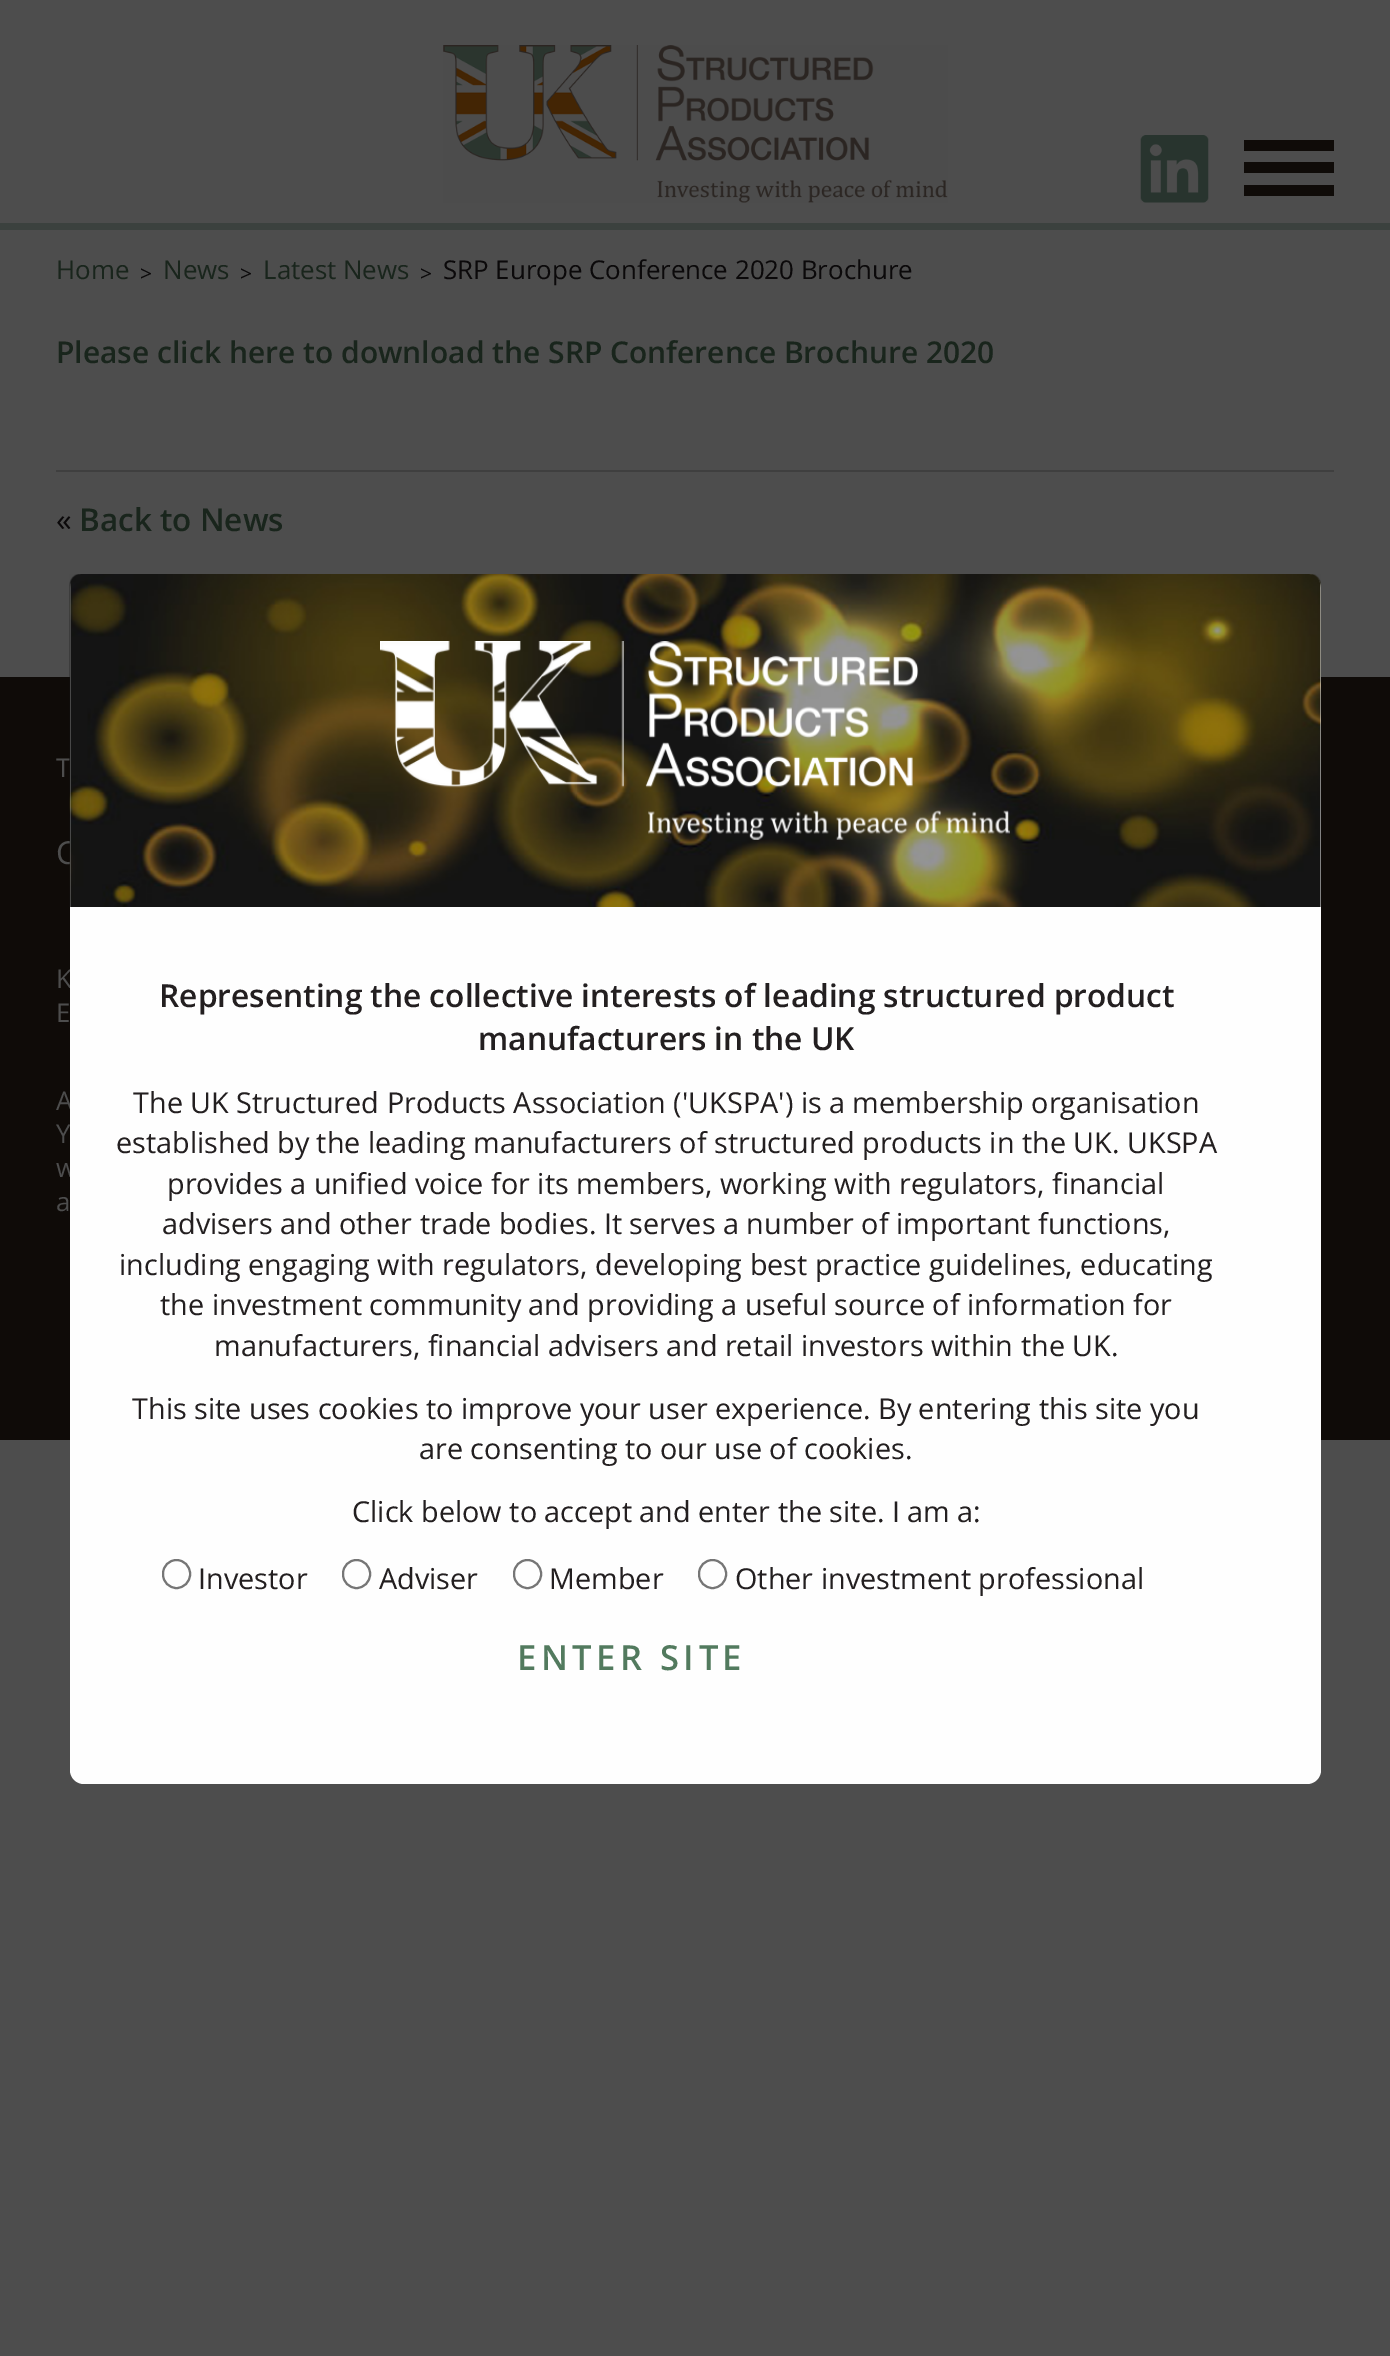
%!PS
<< /PageSize [1390 2356] >> setpagedevice
/roundrect { 5 dict begin { /r /h /w /y /x } { exch def } forall
  x r add y moveto x w add y 2 copy h add r arct x w add y h add x 1 index r arct
  x y h add x y r arct x y 2 copy exch w add exch r arct closepath end } def
/picture { 5 dict begin { /h /w /y /x /name } { exch def } forall
  gsave x y translate w h scale
  w h 8 [w 0 0 h 0 0] name (r) file false 3 colorimage grestore end } def
0 2356 translate 1 -1 scale
4 setmiterlimit
0.302 setgray
0 0 1390 2356 rectfill
0.231 0.255 0.243 setrgbcolor
0 223 1390 7 rectfill
(img1.rgb) 443 45 505 158 picture
(img2.rgb) 1140 135 69 68 picture
0.059 0.043 0.031 setrgbcolor
1244 162 90 11 rectfill
1244 140 90 11 rectfill
1244 185 90 11 rectfill
/OpenSans-Regular [25.9 0 0 -25.9 0 0] selectfont
0.098 0.145 0.11 setrgbcolor
56 279 moveto (Home) show
/OpenSans-Regular [21 0 0 -21 0 0] selectfont
0.043 0.035 0.039 setrgbcolor
140 281 moveto (>) show
/OpenSans-Regular [25.9 0 0 -25.9 0 0] selectfont
0.098 0.145 0.11 setrgbcolor
163 279 moveto (News) show
/OpenSans-Regular [21 0 0 -21 0 0] selectfont
0.043 0.035 0.039 setrgbcolor
240 281 moveto (>) show
/OpenSans-Regular [25.9 0 0 -25.9 0 0] selectfont
0.098 0.145 0.11 setrgbcolor
263 279 moveto (Latest News) show
/OpenSans-Regular [21 0 0 -21 0 0] selectfont
0.043 0.035 0.039 setrgbcolor
420 281 moveto (>) show
/OpenSans-Regular [25.9 0 0 -25.9 0 0] selectfont
443 279 moveto (SRP Europe Conference 2020 Brochure) show
/OpenSans-SemiBold [30 0 0 -30 0 0] selectfont
0.098 0.145 0.11 setrgbcolor
56 363 moveto (Please click here to download the SRP Conference Brochure 2020) show
0.247 setgray
56 470 1278 2 rectfill
/OpenSans-Regular [31.5 0 0 -31.5 0 0] selectfont
0.043 0.035 0.039 setrgbcolor
56 531 moveto («) show
/OpenSans-SemiBold [31.5 0 0 -31.5 0 0] selectfont
0.098 0.145 0.11 setrgbcolor
79 531 moveto (Back to News) show
0.059 0.043 0.031 setrgbcolor
0 677 1390 763 rectfill
/OpenSans-Regular [25.9 0 0 -25.9 0 0] selectfont
0.302 setgray
56 777 moveto (T) show
/OpenSans-Regular [31.7 0 0 -31.7 0 0] selectfont
56 864 moveto (C) show
/OpenSans-Regular [25.9 0 0 -25.9 0 0] selectfont
56 988 moveto (K) show
56 1022 moveto (E) show
56 1110 moveto (A) show
56 1143 moveto (Y) show
56 1177 moveto (w) show
56 1211 moveto (a) show
0.996 setgray
70 574 1251 1210 14 roundrect fill
(img3.rgb) 69 574 1252 333 picture
(img4.rgb) 380 641 630 199 picture
/OpenSans-SemiBold [31.7 0 0 -31.7 0 0] selectfont
0.137 0.122 0.125 setrgbcolor
159 1007 moveto (Representing the collective interests of leading structured product) show
478 1050 moveto (manufacturers in the UK) show
/OpenSans-Regular [28.8 0 0 -28.8 0 0] selectfont
133 1113 moveto (The UK Structured Products Association \('UKSPA'\) is a membership organisation) show
116 1153 moveto (established by the leading manufacturers of structured products in the UK. UKSPA) show
167 1194 moveto (provides a unified voice for its members, working with regulators, financial) show
162 1234 moveto (advisers and other trade bodies. It serves a number of important functions,) show
119 1275 moveto (including engaging with regulators, developing best practice guidelines, educating) show
160 1315 moveto (the investment community and providing a useful source of information for) show
214 1356 moveto (manufacturers, financial advisers and retail investors within the UK.) show
132 1419 moveto (This site uses cookies to improve your user experience. By entering this site you) show
419 1459 moveto (are consenting to our use of cookies.) show
352 1522 moveto (Click below to accept and enter the site. I am a:) show
0.463 setgray
2 setlinewidth
163 1560 27 28 13.5 roundrect stroke
0.137 0.122 0.125 setrgbcolor
198 1589 moveto (Investor) show
0.463 setgray
343 1560 27 28 13.5 roundrect stroke
0.137 0.122 0.125 setrgbcolor
379 1589 moveto (Adviser) show
0.463 setgray
514 1560 27 28 13.5 roundrect stroke
0.137 0.122 0.125 setrgbcolor
549 1589 moveto (Member) show
0.463 setgray
699 1560 27 28 13.5 roundrect stroke
0.137 0.122 0.125 setrgbcolor
735 1589 moveto (Other investment professional) show
/OpenSans-SemiBold [34.5 0 0 -34.5 0 0] selectfont
0.322 0.478 0.369 setrgbcolor
517 1670 moveto 4.5 0 (ENTER SITE) ashow
showpage
